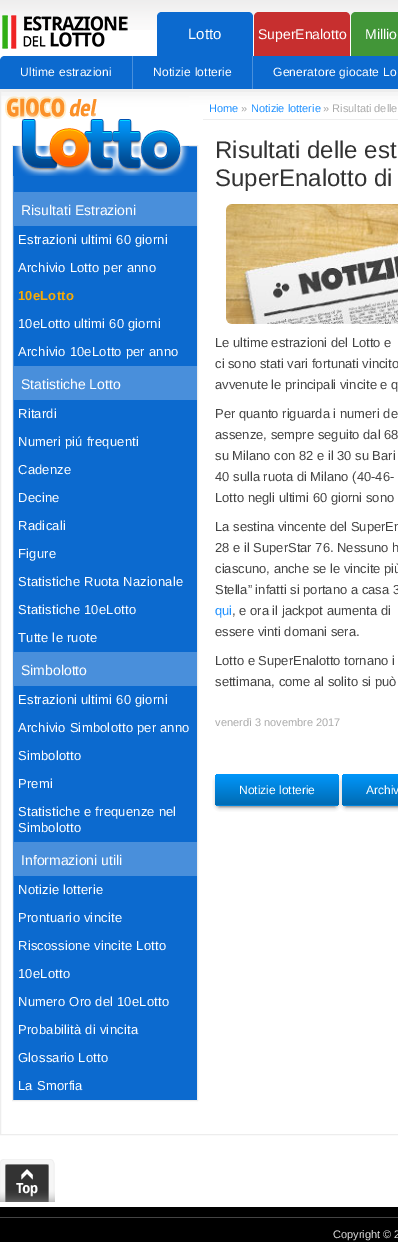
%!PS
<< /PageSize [398 1242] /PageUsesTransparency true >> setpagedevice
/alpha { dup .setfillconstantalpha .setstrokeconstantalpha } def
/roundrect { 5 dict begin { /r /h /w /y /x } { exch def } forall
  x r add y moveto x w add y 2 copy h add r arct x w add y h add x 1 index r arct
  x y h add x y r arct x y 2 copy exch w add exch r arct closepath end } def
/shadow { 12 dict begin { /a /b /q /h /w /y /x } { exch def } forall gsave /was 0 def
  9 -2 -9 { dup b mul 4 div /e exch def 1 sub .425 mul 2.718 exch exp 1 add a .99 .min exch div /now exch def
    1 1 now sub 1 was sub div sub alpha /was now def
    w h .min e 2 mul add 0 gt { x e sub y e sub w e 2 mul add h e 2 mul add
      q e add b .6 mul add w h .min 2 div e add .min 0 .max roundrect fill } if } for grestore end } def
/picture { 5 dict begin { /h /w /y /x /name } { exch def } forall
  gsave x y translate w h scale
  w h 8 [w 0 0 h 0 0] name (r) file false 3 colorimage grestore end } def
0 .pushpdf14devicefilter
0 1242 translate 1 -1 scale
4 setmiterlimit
1 setgray
0 0 398 1242 rectfill
gsave
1 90 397 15 rectclip
0.855 setgray
-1 -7 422 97 0 7.5 1 shadow
grestore
(img1.rgb) 0 0 398 30 picture
(img2.rgb) 2 15 126 34 picture
0.047 0.416 0.812 setrgbcolor
newpath 162 12 moveto 248 12 lineto 251 12 253 14 253 17 curveto 253 56 lineto 157 56 lineto 157 17 lineto 157 14 159 12 162 12 curveto closepath fill
/LiberationSans-Regular [15 0 0 -15 0 0] selectfont
1 setgray
188 39 moveto (Lotto) show
0.78 0.184 0.184 setrgbcolor
newpath 259 12 moveto 345 12 lineto 348 12 350 14 350 17 curveto 350 56 lineto 254 56 lineto 254 17 lineto 254 14 256 12 259 12 curveto closepath fill
/LiberationSans-Regular [14 0 0 -14 0 0] selectfont
1 setgray
258 39 moveto (SuperEnalotto) show
0.259 0.588 0.22 setrgbcolor
newpath 356 12 moveto 398 12 lineto 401 12 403 14 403 17 curveto 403 56 lineto 351 56 lineto 351 17 lineto 351 14 353 12 356 12 curveto closepath fill
1 setgray
365 39 moveto (Millio) show
0.047 0.416 0.812 setrgbcolor
newpath 5 56 moveto 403 56 lineto 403 90 lineto 0 90 lineto 0 61 lineto 0 58 2 56 5 56 curveto closepath fill
/LiberationSans-Regular [12 0 0 -12 0 0] selectfont
1 setgray
20 76 moveto 0.2 0 (Ultime estrazioni) ashow
0.286 0.561 0.859 setrgbcolor
132 56 1 34 rectfill
1 setgray
153 76 moveto 0.2 0 (Notizie lotterie) ashow
0.286 0.561 0.859 setrgbcolor
252 56 1 34 rectfill
1 setgray
273 76 moveto 0.2 0 (Generatore giocate Lo) ashow
0.929 setgray
0.5 89.5 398 1045 rectstroke
0.933 setgray
203 119 195 1 rectfill
/LiberationSans-Regular [11 0 0 -11 0 0] selectfont
0.118 0.565 1 setrgbcolor
209 112 moveto (Home) show
0.667 setgray
241 112 moveto (») show
0.118 0.565 1 setrgbcolor
251 112 moveto (Notizie lotterie) show
0.667 setgray
323 112 moveto (» Risultati delle) show
0.047 0.416 0.812 setrgbcolor
newpath 12.5 145.5 moveto 197.5 145.5 lineto 197.5 1100.5 lineto 12.5 1100.5 lineto closepath gsave fill grestore
0.929 setgray
stroke
(img3.rgb) 5 96 184 80 picture
0.286 0.561 0.859 setrgbcolor
13 192 184 34 rectfill
/LiberationSans-Regular [14 0 0 -14 0 0] selectfont
1 setgray
21 215 moveto (Risultati Estrazioni) show
/LiberationSans-Regular [13 0 0 -13 0 0] selectfont
18 244 moveto 0.2 0 (Estrazioni ultimi 60 giorni) ashow
18 272 moveto 0.2 0 (Archivio Lotto per anno) ashow
/LiberationSans-Bold [13 0 0 -13 0 0] selectfont
0.973 0.667 0.012 setrgbcolor
18 300 moveto 0.2 0 (10eLotto) ashow
/LiberationSans-Regular [13 0 0 -13 0 0] selectfont
1 setgray
18 328 moveto 0.2 0 (10eLotto ultimi 60 giorni) ashow
18 356 moveto 0.2 0 (Archivio 10eLotto per anno) ashow
0.286 0.561 0.859 setrgbcolor
13 366 184 34 rectfill
/LiberationSans-Regular [14 0 0 -14 0 0] selectfont
1 setgray
21 389 moveto (Statistiche Lotto) show
/LiberationSans-Regular [13 0 0 -13 0 0] selectfont
18 418 moveto 0.2 0 (Ritardi) ashow
18 446 moveto 0.2 0 (Numeri piú frequenti) ashow
18 474 moveto 0.2 0 (Cadenze) ashow
18 502 moveto 0.2 0 (Decine) ashow
18 530 moveto 0.2 0 (Radicali) ashow
18 558 moveto 0.2 0 (Figure) ashow
18 586 moveto 0.2 0 (Statistiche Ruota Nazionale) ashow
18 614 moveto 0.2 0 (Statistiche 10eLotto) ashow
18 642 moveto 0.2 0 (Tutte le ruote) ashow
0.286 0.561 0.859 setrgbcolor
13 652 184 34 rectfill
/LiberationSans-Regular [14 0 0 -14 0 0] selectfont
1 setgray
21 675 moveto (Simbolotto) show
/LiberationSans-Regular [13 0 0 -13 0 0] selectfont
18 704 moveto 0.2 0 (Estrazioni ultimi 60 giorni) ashow
18 732 moveto 0.2 0 (Archivio Simbolotto per anno) ashow
18 760 moveto 0.2 0 (Simbolotto) ashow
18 788 moveto 0.2 0 (Premi) ashow
18 816 moveto 0.2 0 (Statistiche e frequenze nel) ashow
18 832 moveto 0.2 0 (Simbolotto) ashow
0.286 0.561 0.859 setrgbcolor
13 842 184 34 rectfill
/LiberationSans-Regular [14 0 0 -14 0 0] selectfont
1 setgray
21 865 moveto (Informazioni utili) show
/LiberationSans-Regular [13 0 0 -13 0 0] selectfont
18 894 moveto 0.2 0 (Notizie lotterie) ashow
18 922 moveto 0.2 0 (Prontuario vincite) ashow
18 950 moveto 0.2 0 (Riscossione vincite Lotto) ashow
18 978 moveto 0.2 0 (10eLotto) ashow
18 1006 moveto 0.2 0 (Numero Oro del 10eLotto) ashow
18 1034 moveto 0.2 0 (Probabilità di vincita) ashow
18 1062 moveto 0.2 0 (Glossario Lotto) ashow
18 1090 moveto 0.2 0 (La Smorfia) ashow
/LiberationSans-Regular [24 0 0 -24 0 0] selectfont
0.2 setgray
215 158 moveto (Risultati delle est) show
215 186 moveto (SuperEnalotto di) show
(img4.rgb) 226 204 172 120 picture
/LiberationSans-Regular [13 0 0 -13 0 0] selectfont
0.267 setgray
215 347 moveto (Le ultime estrazioni del Lotto e) show
215 368 moveto (ci sono stati vari fortunati vincito) show
215 389 moveto (avvenute le principali vincite e q) show
215 418 moveto (Per quanto riguarda i numeri de) show
215 439 moveto (assenze, sempre seguito dal 68) show
215 460 moveto (su Milano con 82 e il 30 su Bari) show
215 481 moveto (40 sulla ruota di Milano \(40-46-) show
215 502 moveto (Lotto negli ultimi 60 giorni sono) show
215 531 moveto (La sestina vincente del SuperEn) show
215 552 moveto (28 e il SuperStar 76. Nessuno h) show
215 573 moveto (ciascuno, anche se le vincite più) show
215 594 moveto (Stella” infatti si portano a casa 3) show
0.118 0.565 1 setrgbcolor
215 615 moveto (qui) show
0.267 setgray
232 615 moveto (, e ora il jackpot aumenta di) show
215 636 moveto (essere vinti domani sera.) show
215 665 moveto (Lotto e SuperEnalotto tornano i) show
215 686 moveto (settimana, come al solito si può) show
/LiberationSans-Regular [11 0 0 -11 0 0] selectfont
0.667 setgray
215 726 moveto (venerdì 3 novembre 2017) show
0.2 setgray
218 780 118 26 1 2.5 1 shadow
gsave 215 774 124 32 4 roundrect clip newpath
<< /ShadingType 2 /ColorSpace /DeviceRGB /Coords [277 774 277 806] /Extend [true true] /Function << /FunctionType 3 /Domain [0 1] /Functions [<< /FunctionType 2 /Domain [0 1] /C0 [0 0.592 0.984] /C1 [0 0.42 0.702] /N 1 >> << /FunctionType 2 /Domain [0 1] /C0 [0 0.51 0.851] /C1 [0 0.51 0.851] /N 1 >>] /Bounds [0.97] /Encode [0 1 0 1] >> >> shfill grestore
/LiberationSans-Regular [12 0 0 -12 0 0] selectfont
1 setgray
239 794 moveto (Notizie lotterie) show
0.2 setgray
345 780 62 26 1 2.5 1 shadow
gsave 342 774 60 32 4 roundrect clip newpath
<< /ShadingType 2 /ColorSpace /DeviceRGB /Coords [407 774 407 806] /Extend [true true] /Function << /FunctionType 3 /Domain [0 1] /Functions [<< /FunctionType 2 /Domain [0 1] /C0 [0 0.592 0.984] /C1 [0 0.42 0.702] /N 1 >> << /FunctionType 2 /Domain [0 1] /C0 [0 0.51 0.851] /C1 [0 0.51 0.851] /N 1 >>] /Bounds [0.97] /Encode [0 1 0 1] >> >> shfill grestore
1 setgray
366 794 moveto (Archiv) show
0 setgray
0 1207 398 35 rectfill
(img5.rgb) 0 1159 55 43 picture
0.267 setgray
0 1217 398 1 rectfill
/LiberationSans-Regular [11 0 0 -11 0 0] selectfont
0.867 setgray
333 1238 moveto (Copyright © 2) show
.poppdf14devicefilter showpage
